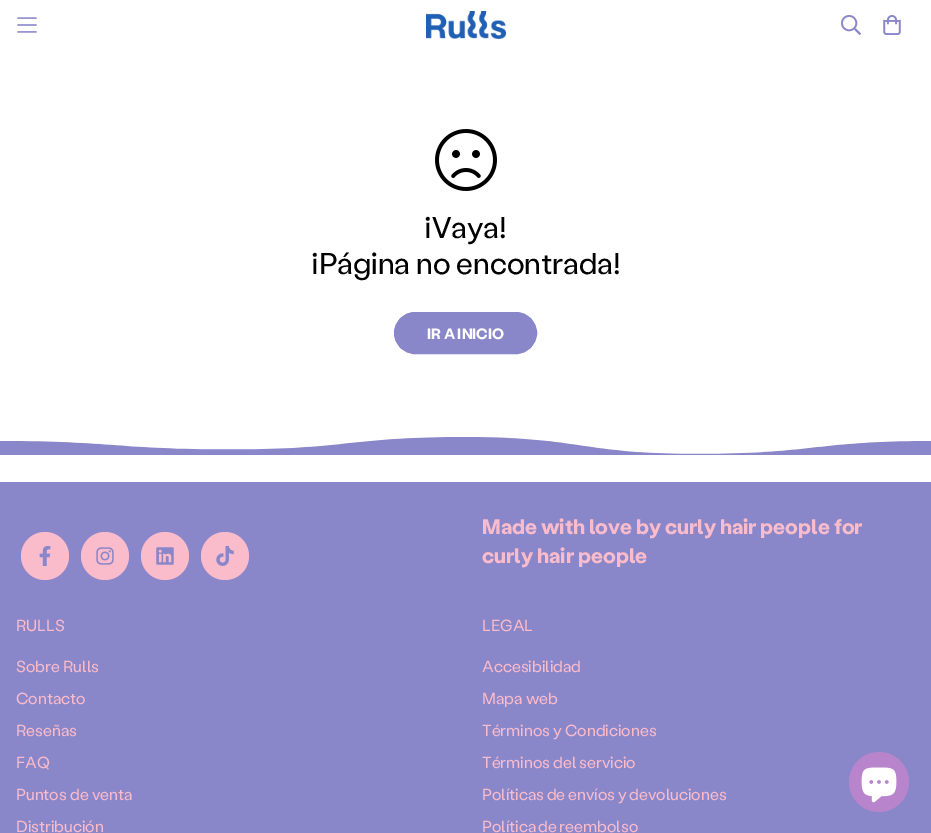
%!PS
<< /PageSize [931 833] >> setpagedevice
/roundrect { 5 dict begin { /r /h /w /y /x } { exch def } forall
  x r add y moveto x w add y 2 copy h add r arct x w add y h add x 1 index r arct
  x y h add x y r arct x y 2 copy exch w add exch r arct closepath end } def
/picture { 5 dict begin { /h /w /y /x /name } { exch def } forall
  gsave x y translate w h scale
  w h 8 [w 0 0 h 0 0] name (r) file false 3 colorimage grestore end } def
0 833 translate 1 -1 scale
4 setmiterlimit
0.537 0.525 0.792 setrgbcolor
0 0 931 833 rectfill
1 setgray
0 0 931 482 rectfill
(img1.rgb) 17 17 20 16 picture
(img2.rgb) 426 11 80 28 picture
(img3.rgb) 841 15 20 20 picture
(img4.rgb) 883 15 18 20 picture
(img5.rgb) 435 129 62 62 picture
/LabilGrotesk-Regular [30 0 0 -30 0 0] selectfont
0 setgray
424 238 moveto (¡Vaya!) show
311 274 moveto (¡Página no encontrada!) show
0.537 0.525 0.792 setrgbcolor
394.5 312.5 142 41 20.5 roundrect gsave fill grestore
stroke
/LabilGrotesk-Bold [15 0 0 -15 0 0] selectfont
1 setgray
427 339 moveto (IR A INICIO) show
(img6.rgb) 0 437 931 18 picture
0.98 0.733 0.796 setrgbcolor
newpath 45 556 24 0 360 arc closepath fill
(img7.rgb) 39 546 12 20 picture
newpath 105 556 24 0 360 arc closepath fill
(img8.rgb) 96 547 18 18 picture
newpath 165 556 24 0 360 arc closepath fill
(img9.rgb) 156 547 18 18 picture
newpath 225 556 24 0 360 arc closepath fill
(img10.rgb) 216 546 18 20 picture
/LabilGrotesk-Bold [21 0 0 -21 0 0] selectfont
482 534 moveto (Made with love by curly hair people for) show
482 563 moveto (curly hair people) show
/LabilGrotesk-Regular [16 0 0 -16 0 0] selectfont
16 631 moveto (RULLS) show
16 672 moveto (Sobre Rulls) show
16 704 moveto (Contacto) show
16 736 moveto (Reseñas) show
16 768 moveto (FAQ) show
16 800 moveto (Puntos de venta) show
16 832 moveto (Distribución) show
482 631 moveto (LEGAL) show
482 672 moveto (Accesibilidad) show
482 704 moveto (Mapa web) show
482 736 moveto (Términos y Condiciones) show
482 768 moveto (Términos del servicio) show
482 800 moveto -0.5 0 32 (Políticas de envíos y devoluciones) widthshow
482 832 moveto -1 0 32 (Política de reembolso) widthshow
0.722 0.518 0.796 setrgbcolor
newpath 879 782 30 0 360 arc closepath fill
(img11.rgb) 861 767 36 36 picture
showpage
